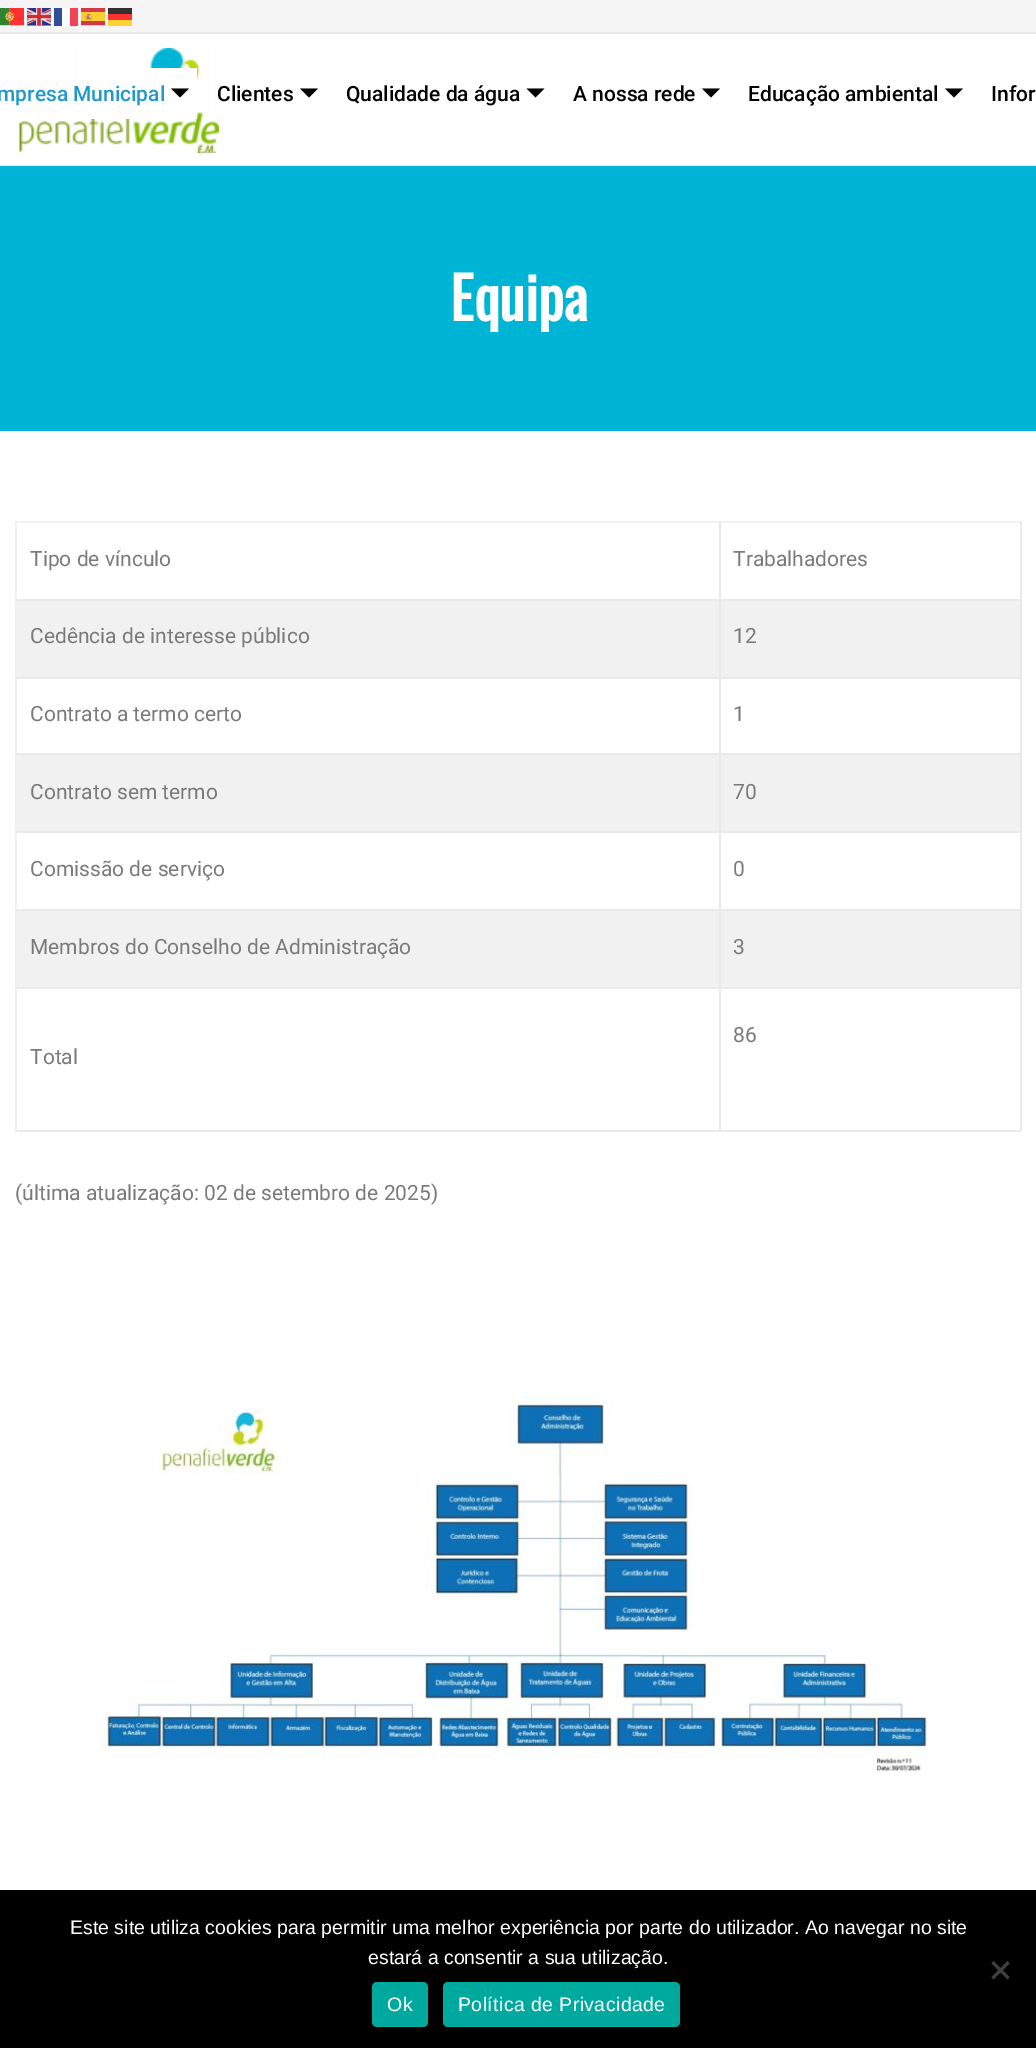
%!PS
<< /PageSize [1036 2048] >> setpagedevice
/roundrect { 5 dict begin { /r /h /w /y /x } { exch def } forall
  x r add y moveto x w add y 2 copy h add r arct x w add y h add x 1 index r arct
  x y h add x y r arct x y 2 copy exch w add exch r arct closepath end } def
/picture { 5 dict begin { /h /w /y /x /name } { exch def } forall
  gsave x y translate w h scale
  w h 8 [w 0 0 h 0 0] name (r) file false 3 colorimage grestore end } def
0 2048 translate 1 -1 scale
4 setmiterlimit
1 setgray
0 0 1036 2048 rectfill
0.925 setgray
0 165 1036 1 rectfill
0.961 setgray
0 0 1036 32 rectfill
0.914 0.906 0.906 setrgbcolor
0 32 1036 2 rectfill
(img1.rgb) 0 8 24 18 picture
(img2.rgb) 27 8 24 18 picture
0.192 0.31 0.592 setrgbcolor
54 8 8 18 rectfill
0.992 setgray
62 8 8 18 rectfill
0.953 0.267 0.341 setrgbcolor
70 8 8 18 rectfill
(img3.rgb) 81 8 24 18 picture
0.192 setgray
108 8 24 6 rectfill
0.992 0.192 0.192 setrgbcolor
108 14 24 6 rectfill
0.992 0.831 0.192 setrgbcolor
108 20 24 6 rectfill
(img4.rgb) 19 48 200 105 picture
1 setgray
90 68 107 51 rectfill
/Roboto-Medium [21 0 0 -21 0 0] selectfont
0.118 0.6 0.808 setrgbcolor
-3 101 moveto (mpresa Municipal) show
0 setgray
newpath 171 88.5 moveto 189 88.5 lineto 180 97.5 lineto closepath fill
217 101 moveto (Clientes) show
newpath 300 88.5 moveto 318 88.5 lineto 309 97.5 lineto closepath fill
346 101 moveto (Qualidade da água) show
newpath 526.5 88.5 moveto 544.5 88.5 lineto 535.5 97.5 lineto closepath fill
573 101 moveto (A nossa rede) show
newpath 702 88.5 moveto 720 88.5 lineto 711 97.5 lineto closepath fill
748 101 moveto (Educação ambiental) show
newpath 945 88.5 moveto 963 88.5 lineto 954 97.5 lineto closepath fill
991 101 moveto (Infor) show
0 0.706 0.835 setrgbcolor
0 166 1036 265 rectfill
/Oswald-Bold [58 0 0 -58 0 0] selectfont
1 setgray
450 321 moveto (Equipa) show
0.945 setgray
15 521 1007 2 rectfill
15 521 2 610 rectfill
17 601 1003 76 rectfill
17 755 1003 76 rectfill
17 911 1003 76 rectfill
0.918 setgray
1020 521 2 610 rectfill
719 1130 303 2 rectfill
719 987 2 144 rectfill
719 987 303 2 rectfill
719 909 2 80 rectfill
719 909 303 2 rectfill
719 831 2 80 rectfill
719 831 303 2 rectfill
719 753 2 80 rectfill
719 753 303 2 rectfill
719 677 2 78 rectfill
719 677 303 2 rectfill
719 599 2 79 rectfill
719 599 303 2 rectfill
719 521 2 79 rectfill
15 599 705 2 rectfill
/Roboto-Regular [21 0 0 -21 0 0] selectfont
0.478 setgray
30 566 moveto (Tipo de vínculo) show
733 566 moveto (Trabalhadores) show
0.918 setgray
15 677 705 2 rectfill
0.478 setgray
30 643 moveto (Cedência de interesse público) show
733 643 moveto (12) show
0.918 setgray
15 753 705 2 rectfill
0.478 setgray
30 721 moveto (Contrato a termo certo) show
733 721 moveto (1) show
0.918 setgray
15 831 705 2 rectfill
0.478 setgray
30 799 moveto (Contrato sem termo) show
733 799 moveto (70) show
0.918 setgray
15 909 705 2 rectfill
0.478 setgray
30 876 moveto (Comissão de serviço) show
733 876 moveto (0) show
0.918 setgray
15 987 705 2 rectfill
0.478 setgray
30 954 moveto (Membros do Conselho de Administração) show
733 954 moveto (3) show
733 1042 moveto (86) show
0.918 setgray
15 1130 705 2 rectfill
0.478 setgray
30 1064 moveto (Total) show
15 1200 moveto (\(última atualização: 02 de setembro de 2025\)) show
(img5.rgb) 103 1394 825 378 picture
0 setgray
0 1890 1036 158 rectfill
/LiberationSans-Regular [19.5 0 0 -19.5 0 0] selectfont
1 setgray
70 1934 moveto (Este site utiliza cookies para permitir uma melhor experiência por parte do utilizador. Ao navegar no site) show
368 1964 moveto (estará a consentir a sua utilização.) show
0.251 setgray
newpath 1007.5 1961 moveto 1009.5 1963.5 lineto 993.5 1979.5 lineto 991.5 1977 lineto closepath fill
newpath 991.5 1963.5 moveto 993.5 1961 lineto 1009.5 1977 lineto 1007.5 1979.5 lineto closepath fill
0 0.663 0.616 setrgbcolor
372 1982 56 45 5 roundrect fill
1 setgray
387 2011 moveto 0.4 0 (Ok) ashow
0 0.663 0.616 setrgbcolor
443 1982 237 45 5 roundrect fill
1 setgray
458 2011 moveto 0.4 0 (Política de Privacidade) ashow
showpage
